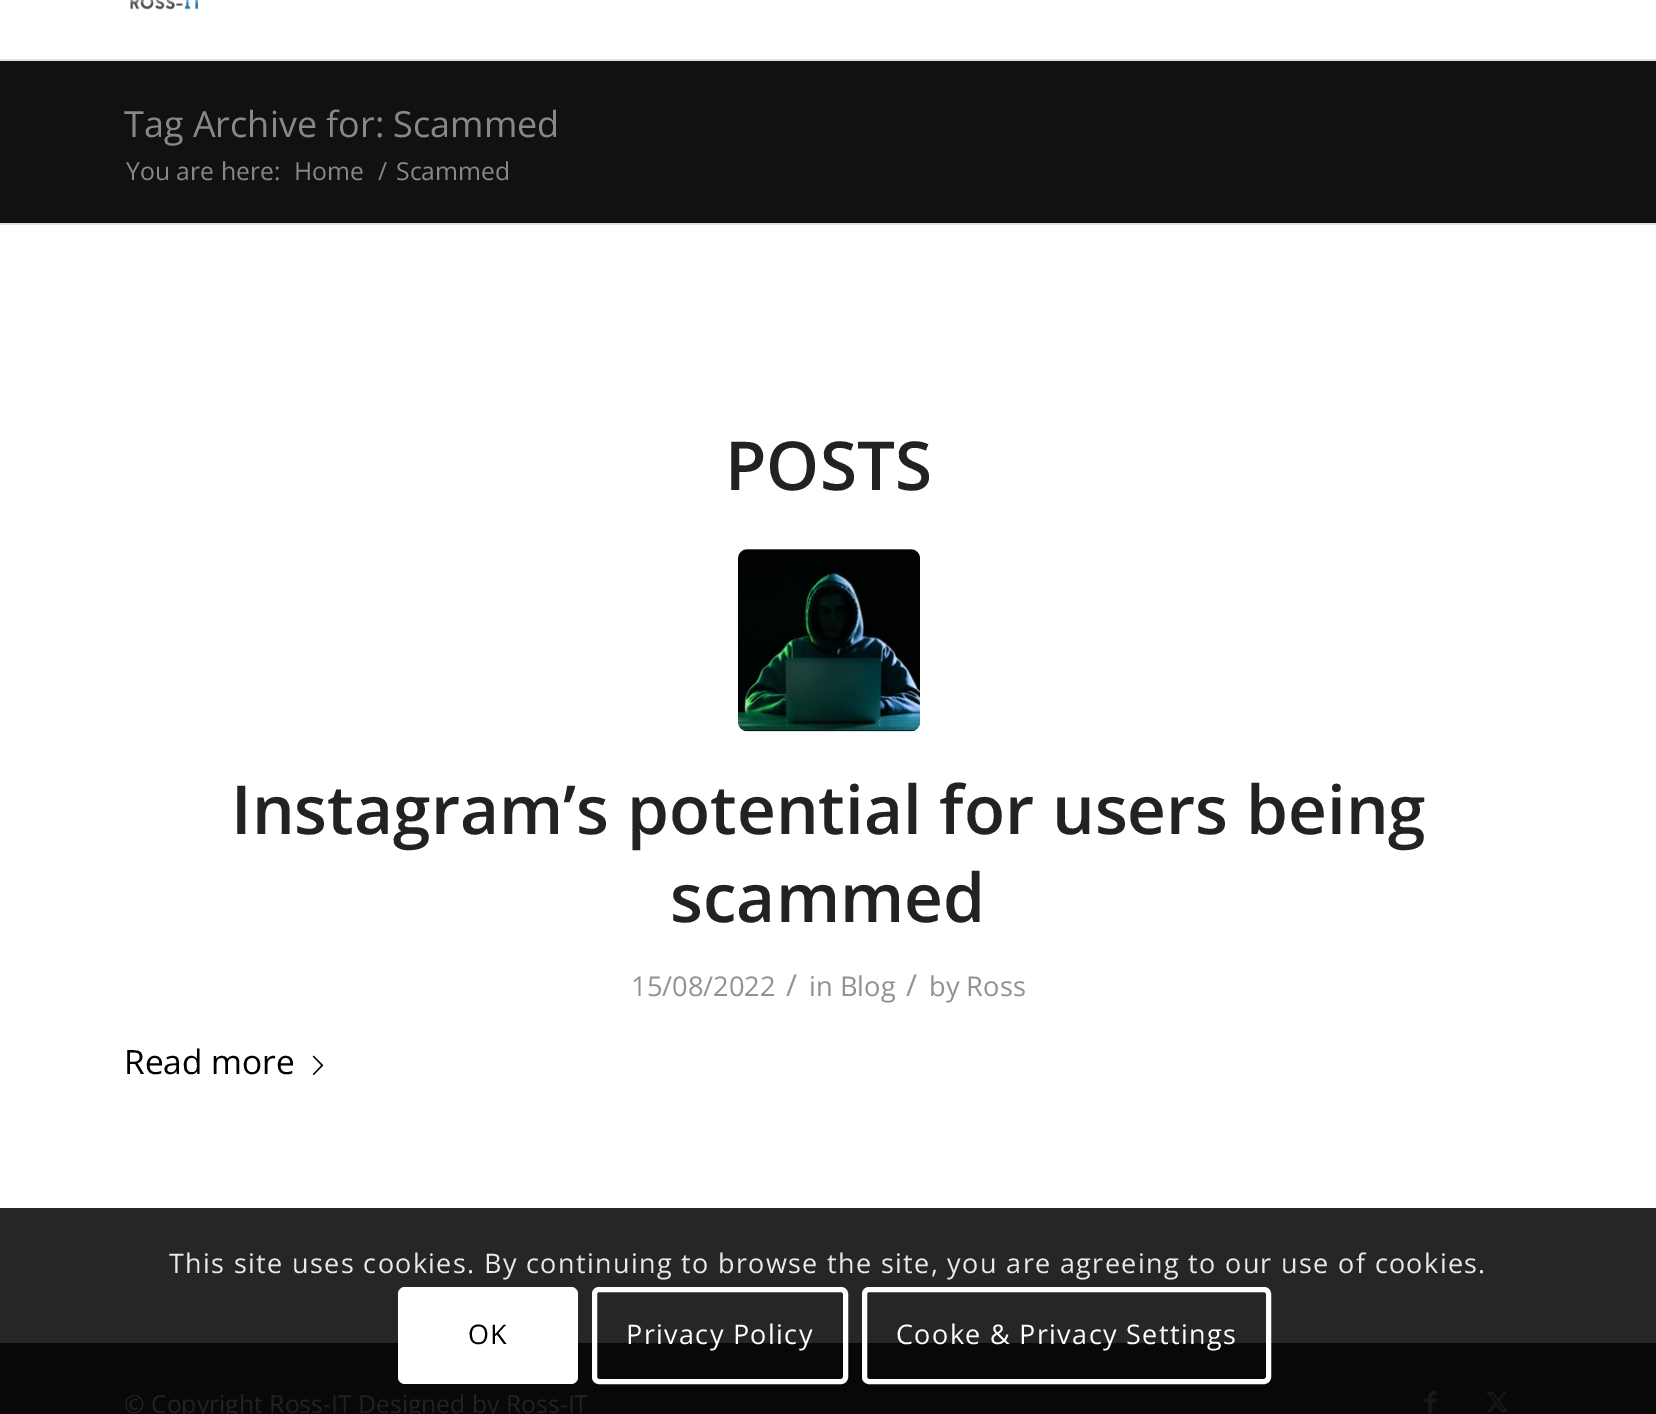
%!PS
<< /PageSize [1656 1414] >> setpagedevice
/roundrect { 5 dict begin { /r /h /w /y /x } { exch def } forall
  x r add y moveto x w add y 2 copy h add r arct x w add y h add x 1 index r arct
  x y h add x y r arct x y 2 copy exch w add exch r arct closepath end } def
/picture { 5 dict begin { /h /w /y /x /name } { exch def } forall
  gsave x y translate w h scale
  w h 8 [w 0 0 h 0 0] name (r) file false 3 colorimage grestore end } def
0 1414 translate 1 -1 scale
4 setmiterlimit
1 setgray
0 0 1656 1414 rectfill
0.149 setgray
0 1208 1656 135 rectfill
0.882 setgray
0 59 1656 2 rectfill
(img1.rgb) 129 0 69 10 picture
0.067 setgray
0 61 1656 162 rectfill
/OpenSans-Regular [36 0 0 -36 0 0] selectfont
0.533 setgray
124 137 moveto (Tag Archive for: Scammed) show
/OpenSans-Regular [24.75 0 0 -24.75 0 0] selectfont
126 180 moveto (You are here:) show
294 180 moveto (Home) show
378 180 moveto (/) show
396 180 moveto (Scammed) show
0.882 setgray
0 223 1656 2 rectfill
/OpenSans-SemiBold [67.5 0 0 -67.5 0 0] selectfont
0.133 setgray
725 490 moveto (POSTS) show
0.569 setgray
738 549 182 182 9 roundrect fill
(img2.rgb) 738 549 182 183 picture
0.133 setgray
231 834 moveto (Instagram’s potential for users being) show
670 922 moveto (scammed) show
/OpenSans-Regular [27.25 0 0 -27.25 0 0] selectfont
0.569 setgray
631 996 moveto (15/08/2022) show
/OpenSans-Regular [30 0 0 -30 0 0] selectfont
786 996 moveto (/) show
/OpenSans-Regular [27.25 0 0 -27.25 0 0] selectfont
809 996 moveto (in Blog) show
/OpenSans-Regular [30 0 0 -30 0 0] selectfont
906 996 moveto (/) show
/OpenSans-Regular [27.25 0 0 -27.25 0 0] selectfont
929 996 moveto (by Ross) show
/OpenSans-Regular [33.5 0 0 -33.5 0 0] selectfont
0 setgray
124 1074 moveto (Read more) show
(img3.rgb) 312 1055 12 20 picture
0.031 setgray
0 1343 1656 71 rectfill
/OpenSans-Regular [24.75 0 0 -24.75 0 0] selectfont
0.133 setgray
124 1413 moveto (© Copyright Ross-IT Designed by Ross-IT) show
(img4.rgb) 1424 1390 13 24 picture
(img5.rgb) 1486 1392 23 21 picture
/OpenSans-Regular [27 0 0 -27 0 0] selectfont
0.914 setgray
169 1273 moveto 1.35 0 (This site uses cookies. By continuing to browse the site, you are agreeing to our use of cookies.) ashow
1 setgray
398 1287 180 97 7 roundrect fill
0 setgray
468 1344 moveto 1.35 0 (OK) ashow
1 setgray
5 setlinewidth
594.5 1289.5 251 92 4.5 roundrect stroke
626 1344 moveto 1.35 0 (Privacy Policy) ashow
864.5 1289.5 404 92 4.5 roundrect stroke
896 1344 moveto 1.35 0 (Cooke & Privacy Settings) ashow
showpage
